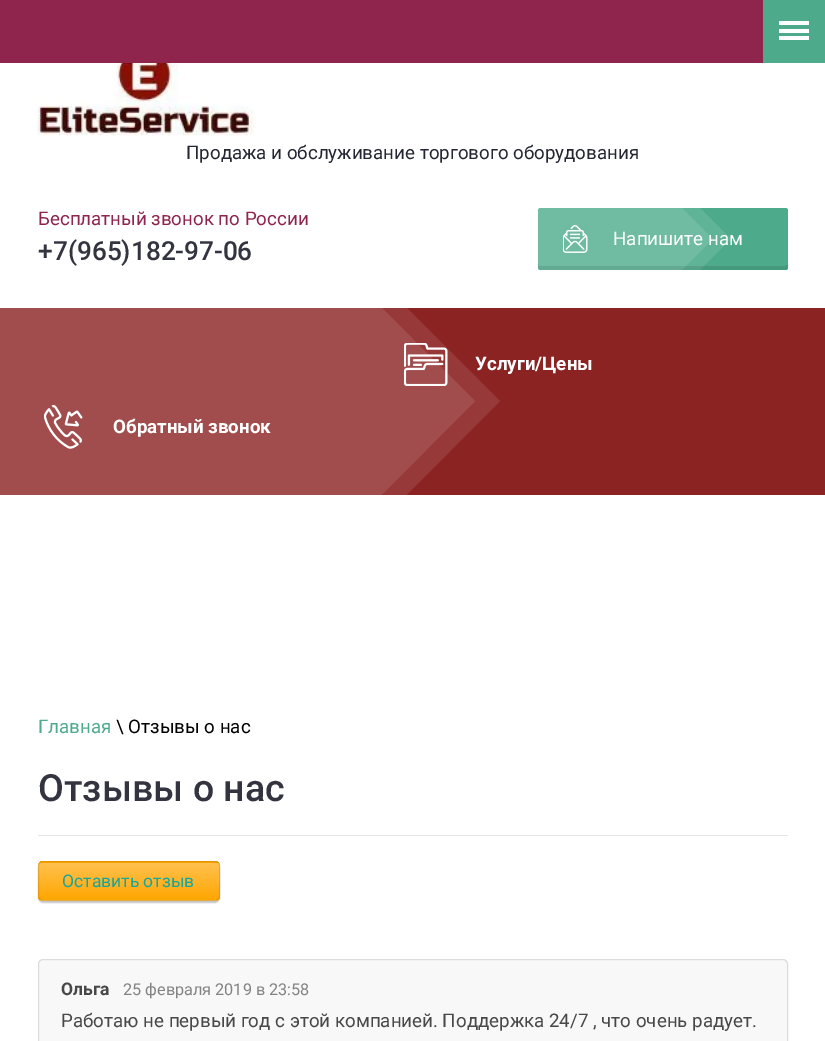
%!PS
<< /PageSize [825 1041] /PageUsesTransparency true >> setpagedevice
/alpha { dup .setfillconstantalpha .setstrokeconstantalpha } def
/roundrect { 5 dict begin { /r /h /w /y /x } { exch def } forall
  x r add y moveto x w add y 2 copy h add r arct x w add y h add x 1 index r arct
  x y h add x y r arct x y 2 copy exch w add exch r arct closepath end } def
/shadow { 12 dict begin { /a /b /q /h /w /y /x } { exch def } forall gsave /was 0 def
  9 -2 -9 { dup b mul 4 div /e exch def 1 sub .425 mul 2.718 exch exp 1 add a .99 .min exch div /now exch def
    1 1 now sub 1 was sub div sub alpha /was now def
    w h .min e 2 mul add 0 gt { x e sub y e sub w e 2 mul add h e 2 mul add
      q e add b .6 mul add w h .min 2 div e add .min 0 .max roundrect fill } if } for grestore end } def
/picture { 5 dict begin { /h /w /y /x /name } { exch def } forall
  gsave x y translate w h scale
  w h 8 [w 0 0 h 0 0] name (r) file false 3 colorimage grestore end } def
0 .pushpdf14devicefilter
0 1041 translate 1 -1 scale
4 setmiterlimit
1 setgray
0 0 825 1041 rectfill
0.561 0.141 0.302 setrgbcolor
0 0 763 63 rectfill
0.302 0.671 0.549 setrgbcolor
763 0 62 63 rectfill
1 setgray
779 21 30 4 rectfill
779 29 30 4 rectfill
779 36 30 4 rectfill
(img1.rgb) 37 63 217 73 picture
/Roboto-Regular [18.75 0 0 -18.75 0 0] selectfont
0.145 0.149 0.2 setrgbcolor
186 159 moveto (Продажа и обслуживание торгового оборудования) show
0.561 0.141 0.302 setrgbcolor
38 225 moveto (Бесплатный звонок по России) show
/Roboto-Medium [26.25 0 0 -26.25 0 0] selectfont
0.2 0.204 0.247 setrgbcolor
38 260 moveto (+7\(965\)182-97-06) show
0.302 0.671 0.549 setrgbcolor
538 208 250 62 2.5 roundrect fill
0.1 alpha
1 setgray
newpath 540 208 moveto 539 208 538 209 538 210 curveto 538 268 lineto 538 269 539 270 540 270 curveto 682 270 lineto 713 239 lineto 682 208 lineto closepath fill
newpath 540 208 moveto 539 208 538 209 538 210 curveto 538 268 lineto 538 269 539 270 540 270 curveto 700 270 lineto 731 239 lineto 700 208 lineto closepath fill
1 alpha
(img2.rgb) 563 225 25 28 picture
0.1 alpha
0 setgray
newpath 538 264 moveto 538 266 537 269 540 270 curveto 786 270 lineto 789 270 788 266 788 264 curveto 788 265 786 266 785 266 curveto 540 266 lineto 539 266 538 265 538 264 curveto closepath fill
/Roboto-Regular [18.75 0 0 -18.75 0 0] selectfont
1 alpha
1 setgray
613 245 moveto (Напишите нам) show
0.545 0.137 0.137 setrgbcolor
381 308 444 187 rectfill
gsave
0 308 475 187 rectclip
0.592 0.224 0.224 setrgbcolor
newpath 279 598 moveto 475 401 lineto 279 205 lineto -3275 205 lineto -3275 598 lineto closepath eofill
grestore
gsave
0 308 500 187 rectclip
0.1 alpha
1 setgray
newpath 304 598 moveto 500 401 lineto 304 205 lineto -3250 205 lineto -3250 598 lineto closepath eofill
grestore
(img3.rgb) 404 343 44 43 picture
/Roboto-Bold [18.75 0 0 -18.75 0 0] selectfont
1 setgray
475 370 moveto (Услуги/Цены) show
(img4.rgb) 44 405 39 44 picture
113 433 moveto (Обратный звонок) show
/Roboto-Regular [18.75 0 0 -18.75 0 0] selectfont
0.302 0.671 0.549 setrgbcolor
38 733 moveto (Главная) show
0 setgray
116 733 moveto (\\ Отзывы о нас) show
0.902 setgray
38 835 750 1 rectfill
/Roboto-Medium [37.5 0 0 -37.5 0 0] selectfont
0.2 0.204 0.247 setrgbcolor
38 801 moveto (Отзывы о нас) show
0 setgray
38 863 182 40 5 0.5 0.2 shadow
gsave
38 861 182 40 5 roundrect clip newpath
gsave newpath 38 861 moveto 220 861 lineto 220 863 lineto 38 863 lineto closepath clip newpath
<< /ShadingType 2 /ColorSpace /DeviceRGB /Coords [129 825 129 863] /Extend [true true] /Function << /FunctionType 2 /Domain [0 1] /C0 [1 0.757 0.306] /C1 [1 0.651 0.004] /N 1 >> >> shfill grestore
gsave newpath 38 863 moveto 220 863 lineto 220 900 lineto 38 900 lineto closepath clip newpath
<< /ShadingType 2 /ColorSpace /DeviceRGB /Coords [129 863 129 900] /Extend [true true] /Function << /FunctionType 2 /Domain [0 1] /C0 [1 0.757 0.306] /C1 [1 0.651 0.004] /N 1 >> >> shfill grestore
gsave newpath 38 900 moveto 220 900 lineto 220 901 lineto 38 901 lineto closepath clip newpath
<< /ShadingType 2 /ColorSpace /DeviceRGB /Coords [129 900 129 938] /Extend [true true] /Function << /FunctionType 2 /Domain [0 1] /C0 [1 0.757 0.306] /C1 [1 0.651 0.004] /N 1 >> >> shfill grestore
grestore
0.1 alpha
38.5 861.5 181 39 4.5 roundrect stroke
/Roboto-Regular [17.5 0 0 -17.5 0 0] selectfont
1 alpha
0.09 0.651 0.612 setrgbcolor
62 887 moveto (Оставить отзыв) show
0.973 setgray
38.5 959.5 749 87 4.5 roundrect gsave fill grestore
0.863 setgray
stroke
/Roboto-Bold [17.5 0 0 -17.5 0 0] selectfont
0.282 setgray
61 995 moveto (Ольга) show
/Roboto-Regular [16.25 0 0 -16.25 0 0] selectfont
0.514 setgray
123 995 moveto (25 февраля 2019 в 23:58) show
/Roboto-Regular [18.75 0 0 -18.75 0 0] selectfont
0.282 setgray
61 1027 moveto (Работаю не первый год с этой компанией. Поддержка 24/7 , что очень радует.) show
.poppdf14devicefilter showpage
